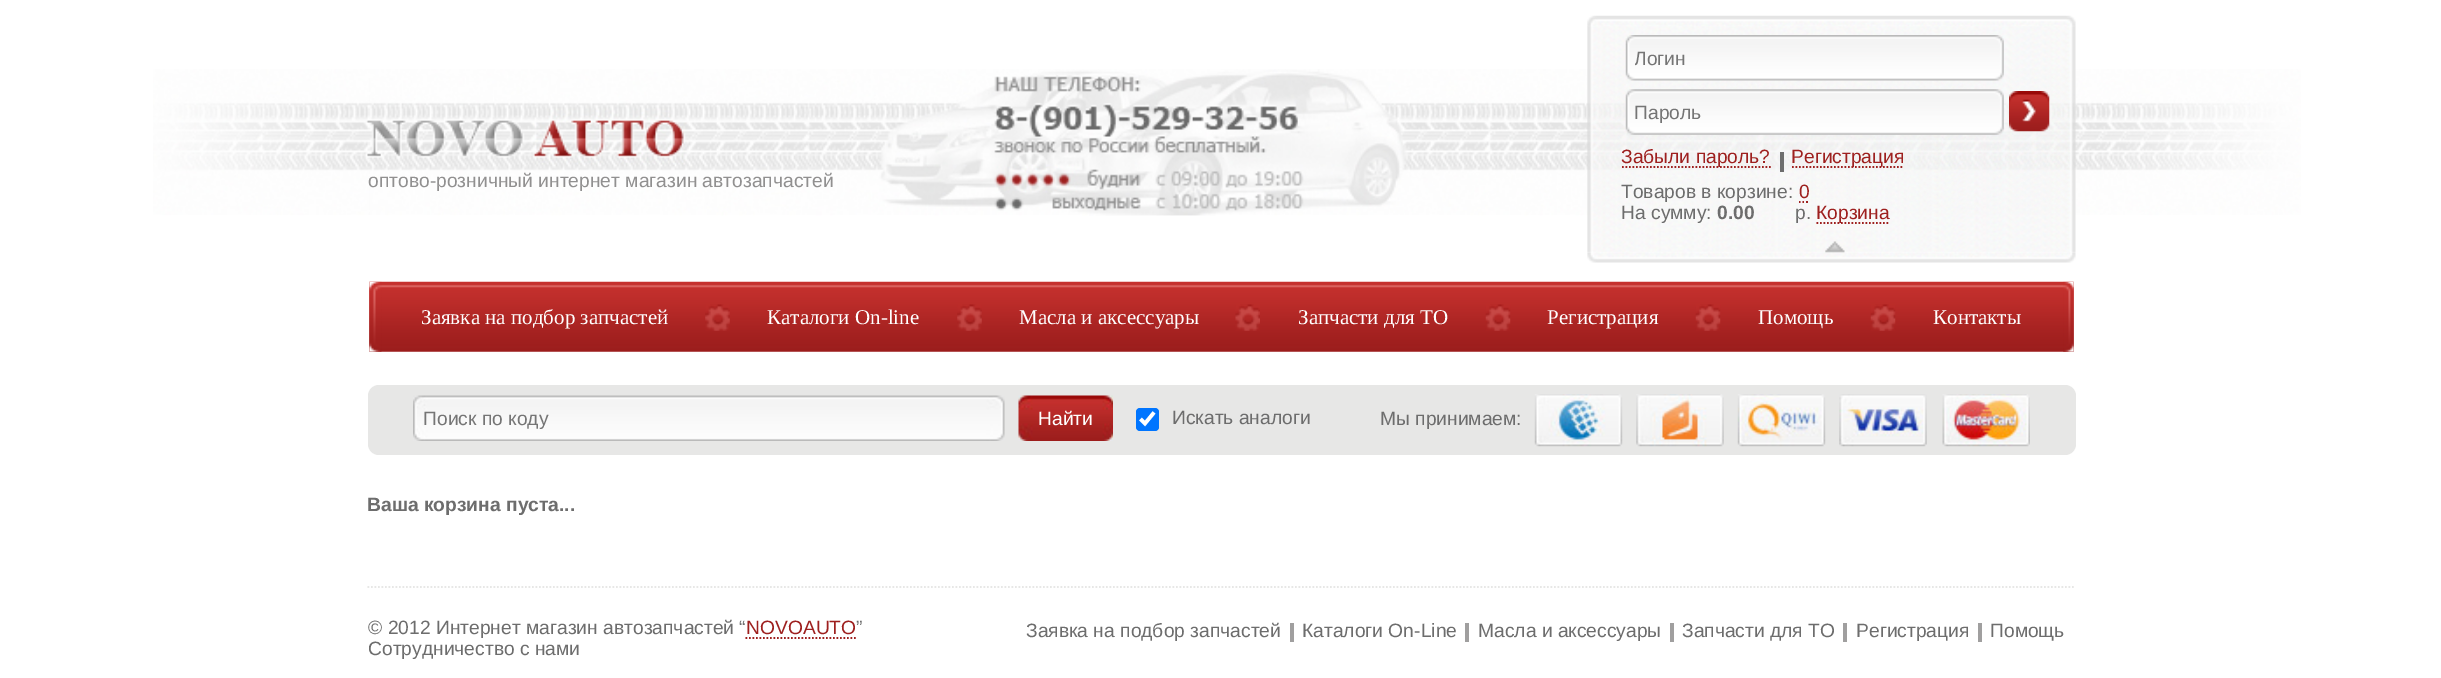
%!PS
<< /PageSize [2441 678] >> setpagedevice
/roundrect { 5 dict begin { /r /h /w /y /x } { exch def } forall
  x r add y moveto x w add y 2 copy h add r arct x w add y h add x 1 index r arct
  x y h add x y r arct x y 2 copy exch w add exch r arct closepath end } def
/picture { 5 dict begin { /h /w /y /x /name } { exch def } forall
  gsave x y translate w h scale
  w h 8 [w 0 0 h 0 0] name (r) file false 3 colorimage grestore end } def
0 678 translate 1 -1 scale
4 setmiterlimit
1 setgray
0 0 2441 678 rectfill
(img1.rgb) 1587 15 489 12 picture
(img2.rgb) 1587 251 489 12 picture
(img8.rgb) 153 69 2148 147 picture
(img9.rgb) 369 75 1704 141 picture
(img3.rgb) 1587 26 489 226 picture
(img4.rgb) 1625 35 379 46 picture
gsave
1635 47 369 21 rectclip
/LiberationSans-Regular [19.25 0 0 -19.25 0 0] selectfont
0.459 setgray
1634 65 moveto (Логин) show
grestore
(img5.rgb) 1625 89 379 46 picture
/LiberationSans-Regular [19.25 0 0 -19.25 0 0] selectfont
0.459 setgray
1634 119 moveto (Пароль) show
(img6.rgb) 2009 91 41 41 picture
0.62 0.125 0.122 setrgbcolor
1.8 setlinewidth
[1.75 1.75] 0 setdash
newpath 1622 167 moveto 1771 167 lineto stroke
1621 163 moveto (Забыли пароль?) show
0.427 setgray
1780 152 4 20 rectfill
0.62 0.125 0.122 setrgbcolor
newpath 1792 167 moveto 1904 167 lineto stroke
1791 163 moveto (Регистрация) show
0.427 setgray
1621 198 moveto (Товаров в корзине:) show
0.62 0.125 0.122 setrgbcolor
1799 198 moveto (0) show
[] 0 setdash
newpath 1799 202 moveto 1800.5 202 lineto 1802.5 202 moveto 1804 202 lineto 1806 202 moveto 1808 202 lineto stroke
0.427 setgray
1621 219 moveto (На сумму:) show
/LiberationSans-Bold [19.25 0 0 -19.25 0 0] selectfont
1717 219 moveto (0.00) show
/LiberationSans-Regular [19.25 0 0 -19.25 0 0] selectfont
1795 219 moveto (р.) show
0.62 0.125 0.122 setrgbcolor
[1.75 1.75] 0 setdash
newpath 1816.5 223 moveto 1890 223 lineto stroke
1816 219 moveto (Корзина) show
(img7.rgb) 1825 241 20 12 picture
0.569 0.565 0.565 setrgbcolor
368 187 moveto (оптово-розничный интернет магазин автозапчастей) show
(img10.rgb) 369 281 1705 71 picture
(img11.rgb) 369 281 13 71 picture
/LiberationSerif-Regular [21 0 0 -21 0 0] selectfont
1 setgray
421 324 moveto (Заявка на подбор запчастей) show
(img12.rgb) 705 304 25 27 picture
767 324 moveto (Каталоги On-line) show
(img13.rgb) 957 304 25 27 picture
1019 324 moveto (Масла и аксессуары) show
(img14.rgb) 1235 304 25 27 picture
1298 324 moveto (Запчасти для ТО) show
(img15.rgb) 1485 304 26 27 picture
1547 324 moveto (Регистрация) show
(img15.rgb) 1695 304 26 27 picture
1758 324 moveto (Помощь) show
(img16.rgb) 1870 304 26 27 picture
(img17.rgb) 2063 281 11 71 picture
1933 324 moveto (Контакты) show
0.906 0.906 0.902 setrgbcolor
368 385 1708 70 11 roundrect fill
(img18.rgb) 413 395 592 46 picture
/LiberationSans-Regular [19.25 0 0 -19.25 0 0] selectfont
0.459 setgray
423 425 moveto (Поиск по коду) show
(img19.rgb) 1018 395 95 46 picture
1 setgray
1038 425 moveto (Найти) show
0 0.459 1 setrgbcolor
1136 408 23 23 4 roundrect fill
1 setgray
3.6 setlinewidth
[] 0 setdash
newpath 1140.5 419 moveto 1145 423.5 lineto 1154 412.5 lineto stroke
0.427 setgray
1172 424 moveto (Искать аналоги) show
1380 425 moveto (Мы принимаем:) show
(img20.rgb) 1534 394 89 53 picture
(img21.rgb) 1636 394 88 53 picture
(img22.rgb) 1737 394 89 53 picture
(img23.rgb) 1839 394 88 53 picture
(img24.rgb) 1942 394 88 53 picture
gsave
368 488 1708 65 rectclip
/LiberationSans-Bold [19.25 0 0 -19.25 0 0] selectfont
367 511 moveto (Ваша корзина пуста...) show
grestore
0.906 0.906 0.902 setrgbcolor
1.8 setlinewidth
[1.75 1.75] 0 setdash
newpath 367.5 587 moveto 2075.5 587 lineto stroke
0.427 setgray
368 634 moveto (© 2012 Интернет магазин автозапчастей “) show
0.62 0.125 0.122 setrgbcolor
746 634 moveto (NOVOAUTO) show
newpath 745.5 638 moveto 856 638 lineto stroke
0.427 setgray
856 634 moveto (”) show
368 655 moveto (Сотрудничество с нами) show
1026 637 moveto (Заявка на подбор запчастей) show
0.627 0.624 0.624 setrgbcolor
1290 623 4 19 rectfill
0.427 setgray
1302 637 moveto (Каталоги On-Line) show
0.627 0.624 0.624 setrgbcolor
1465 623 4 19 rectfill
0.427 setgray
1478 637 moveto (Масла и аксессуары) show
0.627 0.624 0.624 setrgbcolor
1670 623 4 19 rectfill
0.427 setgray
1682 637 moveto (Запчасти для ТО) show
0.627 0.624 0.624 setrgbcolor
1843 623 4 19 rectfill
0.427 setgray
1856 637 moveto (Регистрация) show
0.627 0.624 0.624 setrgbcolor
1978 623 4 19 rectfill
0.427 setgray
1990 637 moveto (Помощь) show
showpage
